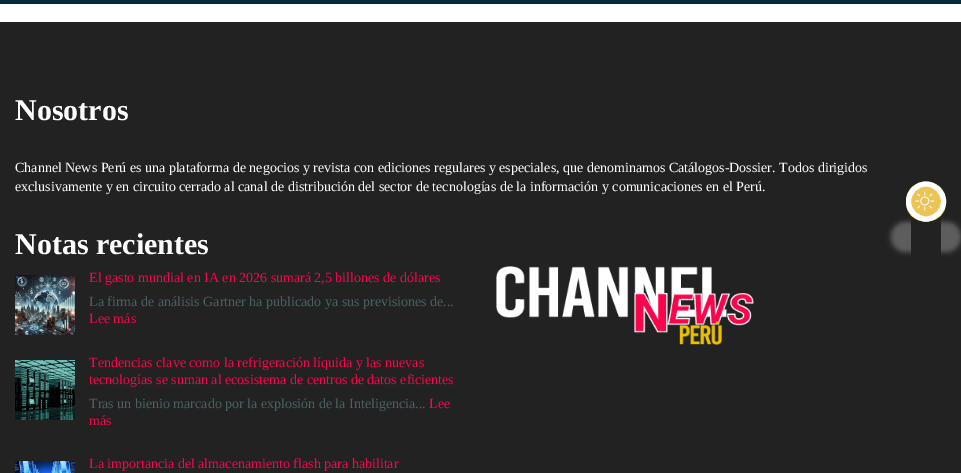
%!PS
<< /PageSize [961 473] /PageUsesTransparency true >> setpagedevice
/alpha { dup .setfillconstantalpha .setstrokeconstantalpha } def
/roundrect { 5 dict begin { /r /h /w /y /x } { exch def } forall
  x r add y moveto x w add y 2 copy h add r arct x w add y h add x 1 index r arct
  x y h add x y r arct x y 2 copy exch w add exch r arct closepath end } def
/shadow { 12 dict begin { /a /b /q /h /w /y /x } { exch def } forall gsave /was 0 def
  9 -2 -9 { dup b mul 4 div /e exch def 1 sub .425 mul 2.718 exch exp 1 add a .99 .min exch div /now exch def
    1 1 now sub 1 was sub div sub alpha /was now def
    w h .min e 2 mul add 0 gt { x e sub y e sub w e 2 mul add h e 2 mul add
      q e add b .6 mul add w h .min 2 div e add .min 0 .max roundrect fill } if } for grestore end } def
/picture { 5 dict begin { /h /w /y /x /name } { exch def } forall
  gsave x y translate w h scale
  w h 8 [w 0 0 h 0 0] name (r) file false 3 colorimage grestore end } def
0 .pushpdf14devicefilter
0 473 translate 1 -1 scale
4 setmiterlimit
1 setgray
0 0 961 473 rectfill
0 0.161 0.227 setrgbcolor
0 0 961 4 rectfill
0.133 setgray
0 22 961 451 rectfill
/LiberationSerif-Bold [30 0 0 -30 0 0] selectfont
1 setgray
15 120 moveto (Nosotros) show
/LiberationSerif-Regular [14 0 0 -14 0 0] selectfont
15 172 moveto (Channel News Perú es una plataforma de negocios y revista con ediciones regulares y especiales, que denominamos Catálogos-Dossier. Todos dirigidos) show
15 191 moveto (exclusivamente y en circuito cerrado al canal de distribución del sector de tecnologías de la información y comunicaciones en el Perú.) show
/LiberationSerif-Bold [30 0 0 -30 0 0] selectfont
15 254 moveto (Notas recientes) show
(img1.rgb) 15 275 60 60 picture
/LiberationSerif-Regular [14 0 0 -14 0 0] selectfont
0.98 0.016 0.294 setrgbcolor
89 282 moveto (El gasto mundial en IA en 2026 sumará 2,5 billones de dólares) show
0.29 0.38 0.388 setrgbcolor
89 306 moveto (La firma de análisis Gartner ha publicado ya sus previsiones de...) show
0.98 0.016 0.294 setrgbcolor
89 323 moveto (Lee más) show
(img2.rgb) 15 360 60 60 picture
89 367 moveto (Tendencias clave como la refrigeración líquida y las nuevas) show
89 384 moveto (tecnologías se suman al ecosistema de centros de datos eficientes) show
0.29 0.38 0.388 setrgbcolor
89 408 moveto (Tras un bienio marcado por la explosión de la Inteligencia...) show
0.98 0.016 0.294 setrgbcolor
429 408 moveto (Lee) show
89 425 moveto (más) show
(img3.rgb) 15 461 60 12 picture
89 468 moveto (La importancia del almacenamiento flash para habilitar) show
(img4.rgb) 496 266 258 79 picture
gsave
newpath 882 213 moveto 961 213 lineto 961 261 lineto 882 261 lineto closepath 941 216.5 moveto 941 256.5 lineto 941 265 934.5 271.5 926 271.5 curveto 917.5 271.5 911 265 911 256.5 curveto 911 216.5 lineto 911 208 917.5 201.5 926 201.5 curveto 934.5 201.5 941 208 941 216.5 curveto closepath eoclip newpath
0.467 setgray
891 222 70 30 15 2.5 0.7 shadow
grestore
0.925 0.765 0.333 setrgbcolor
newpath 946 202 moveto 946 228 906 228 906 202 curveto 906 175 946 175 946 202 curveto closepath fill
1 setgray
5 setlinewidth
newpath 943.5 201.5 moveto 943.5 211 935.5 219 926 219 curveto 916.5 219 908.5 211 908.5 201.5 curveto 908.5 192 916.5 184 926 184 curveto 935.5 184 943.5 192 943.5 201.5 curveto closepath stroke
(img5.rgb) 915 191 20 20 picture
.poppdf14devicefilter showpage
